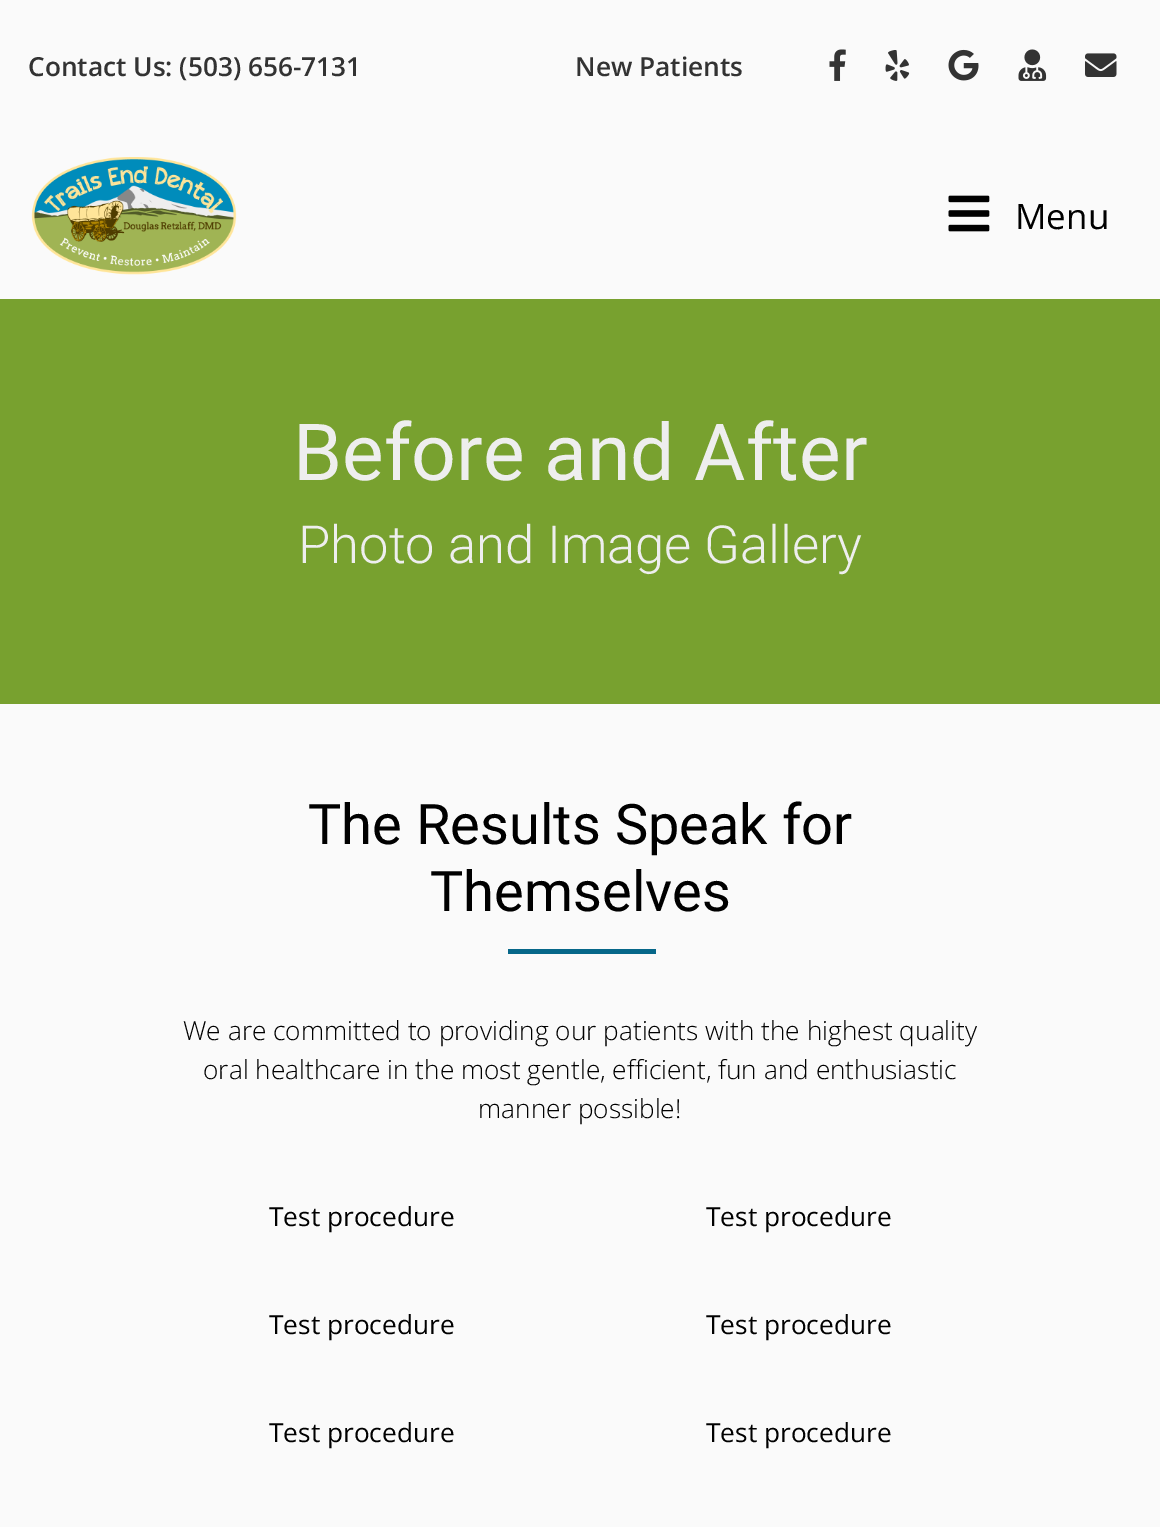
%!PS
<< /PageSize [1160 1527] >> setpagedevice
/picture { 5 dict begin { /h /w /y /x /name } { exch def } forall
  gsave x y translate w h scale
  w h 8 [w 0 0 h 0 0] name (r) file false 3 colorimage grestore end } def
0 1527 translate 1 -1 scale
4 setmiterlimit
0.98 setgray
0 0 1160 1527 rectfill
/OpenSans-SemiBold [26.25 0 0 -26.25 0 0] selectfont
0.2 setgray
28 76 moveto (Contact Us: \(503\) 656-7131) show
575 76 moveto (New Patients) show
(img1.rgb) 829 49 17 32 picture
(img2.rgb) 885 50 25 31 picture
(img3.rgb) 948 49 31 32 picture
(img4.rgb) 1018 49 29 32 picture
(img5.rgb) 1085 53 32 24 picture
(img6.rgb) 31 157 206 118 picture
(img7.rgb) 948 195 42 37 picture
/OpenSans-Regular [35 0 0 -35 0 0] selectfont
0 setgray
1015 229 moveto (Menu) show
0.471 0.631 0.184 setrgbcolor
0 299 1160 405 rectfill
/Roboto-Regular [78.75 0 0 -78.75 0 0] selectfont
0.933 setgray
293 480 moveto (Before and After) show
/Roboto-Light [52.5 0 0 -52.5 0 0] selectfont
298 563 moveto (Photo and Image Gallery) show
/Roboto-Regular [56 0 0 -56 0 0] selectfont
0 setgray
308 844 moveto (The Results Speak for) show
430 911 moveto (Themselves) show
0.024 0.404 0.537 setrgbcolor
508 949 148 5 rectfill
/OpenSans-Light [26.25 0 0 -26.25 0 0] selectfont
0 setgray
183 1040 moveto (We are committed to providing our patients with the highest quality) show
203 1079 moveto (oral healthcare in the most gentle, efficient, fun and enthusiastic) show
478 1118 moveto (manner possible!) show
/OpenSans-Regular [26.25 0 0 -26.25 0 0] selectfont
269 1226 moveto (Test procedure) show
706 1226 moveto (Test procedure) show
269 1334 moveto (Test procedure) show
706 1334 moveto (Test procedure) show
269 1442 moveto (Test procedure) show
706 1442 moveto (Test procedure) show
showpage
